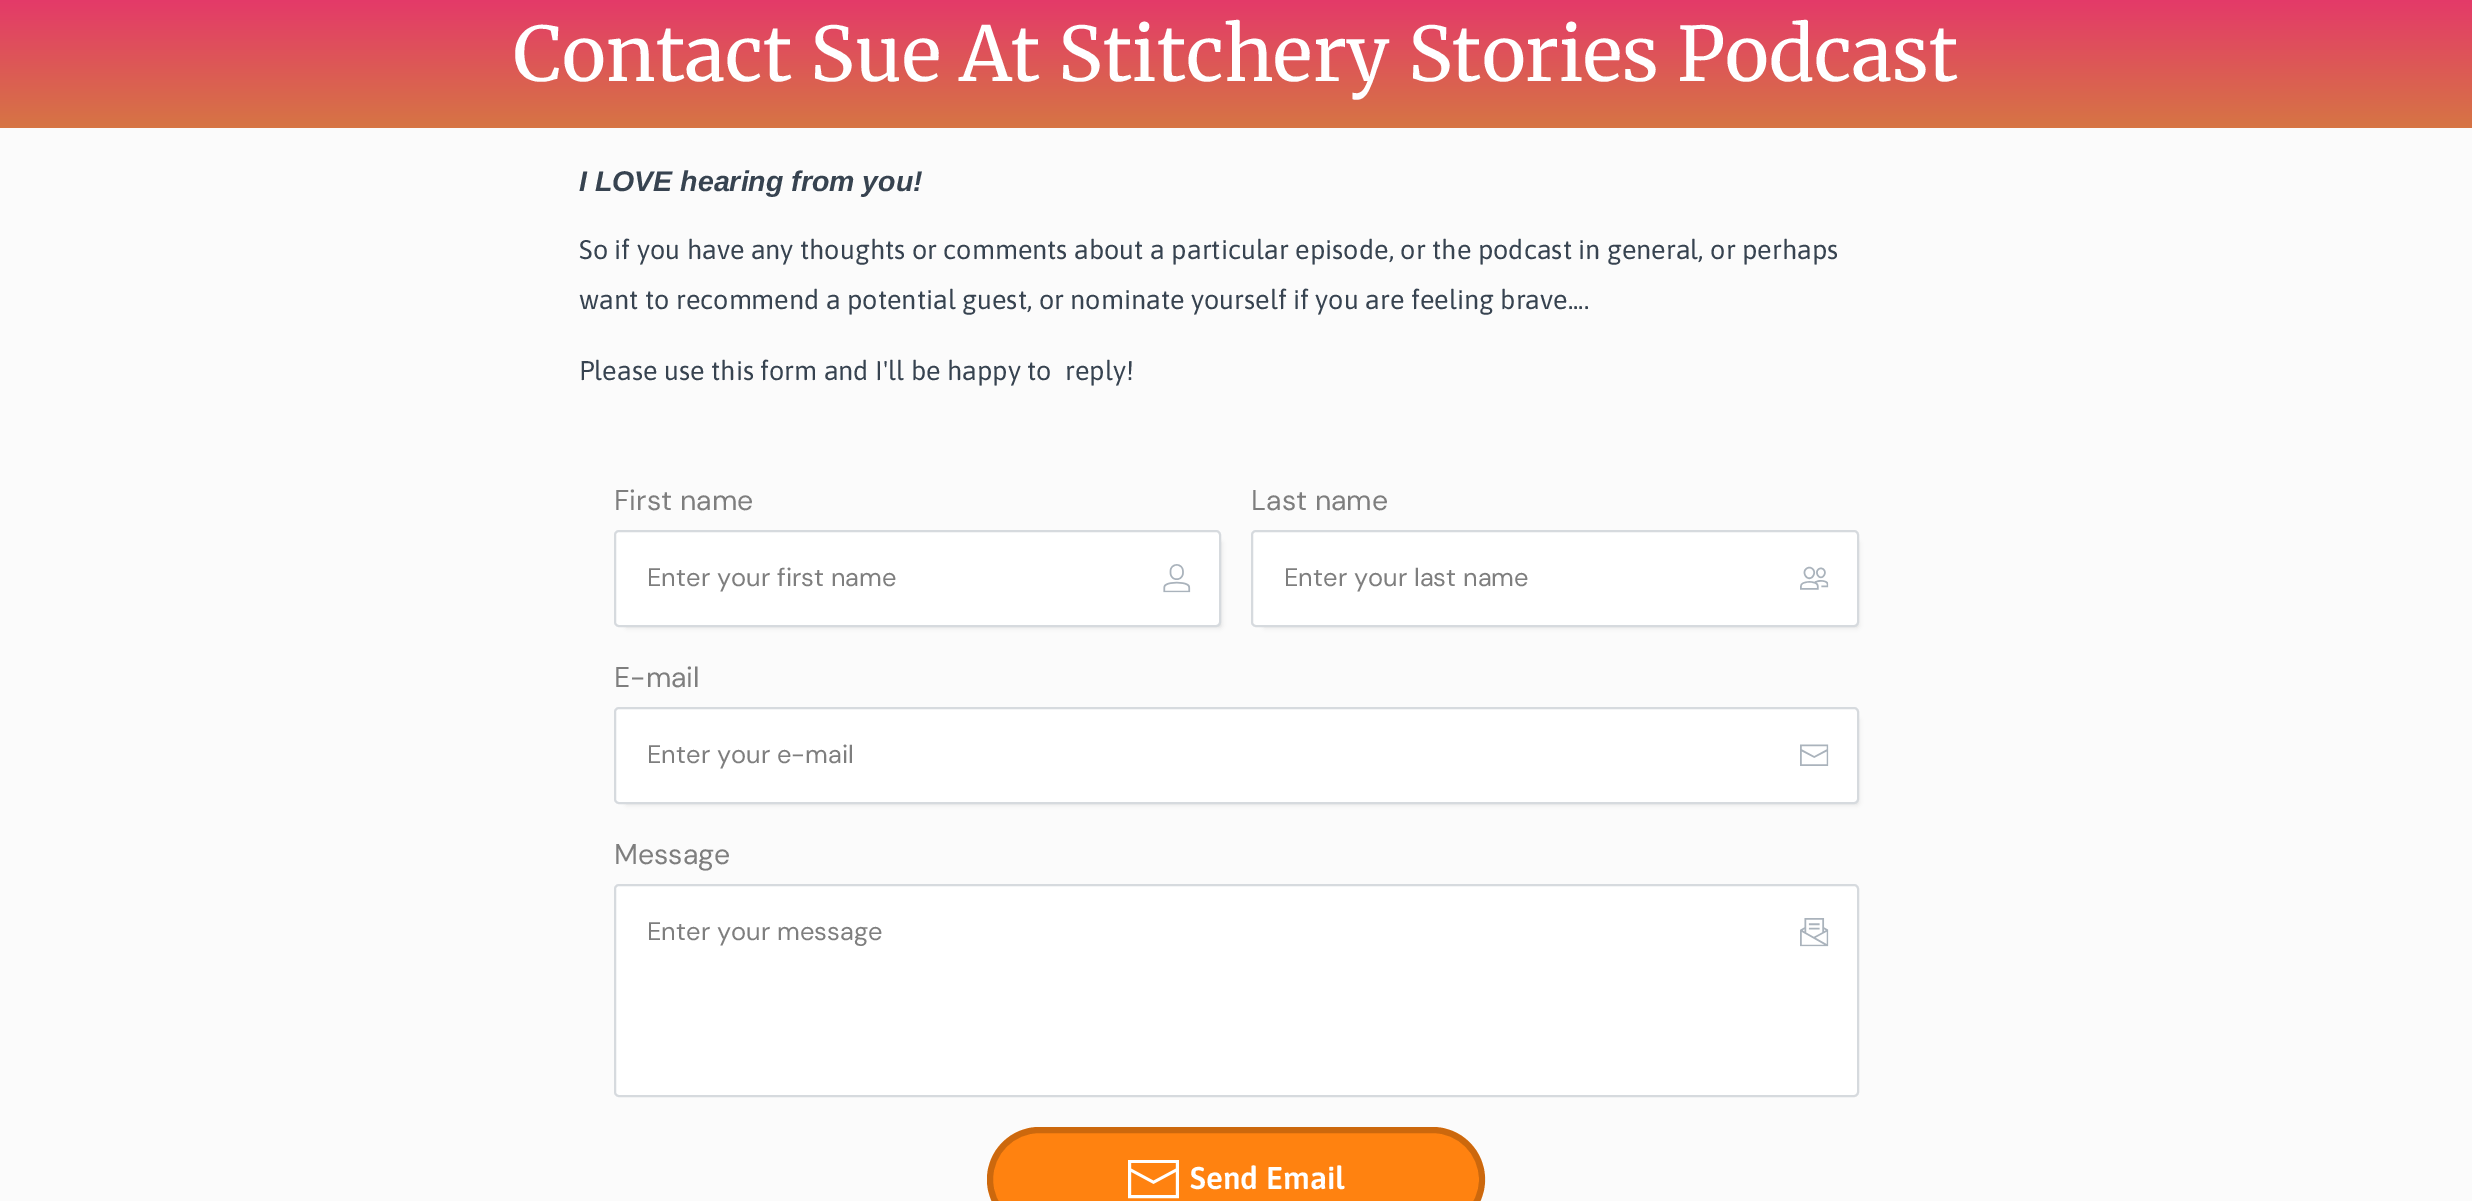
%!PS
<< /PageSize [2472 1201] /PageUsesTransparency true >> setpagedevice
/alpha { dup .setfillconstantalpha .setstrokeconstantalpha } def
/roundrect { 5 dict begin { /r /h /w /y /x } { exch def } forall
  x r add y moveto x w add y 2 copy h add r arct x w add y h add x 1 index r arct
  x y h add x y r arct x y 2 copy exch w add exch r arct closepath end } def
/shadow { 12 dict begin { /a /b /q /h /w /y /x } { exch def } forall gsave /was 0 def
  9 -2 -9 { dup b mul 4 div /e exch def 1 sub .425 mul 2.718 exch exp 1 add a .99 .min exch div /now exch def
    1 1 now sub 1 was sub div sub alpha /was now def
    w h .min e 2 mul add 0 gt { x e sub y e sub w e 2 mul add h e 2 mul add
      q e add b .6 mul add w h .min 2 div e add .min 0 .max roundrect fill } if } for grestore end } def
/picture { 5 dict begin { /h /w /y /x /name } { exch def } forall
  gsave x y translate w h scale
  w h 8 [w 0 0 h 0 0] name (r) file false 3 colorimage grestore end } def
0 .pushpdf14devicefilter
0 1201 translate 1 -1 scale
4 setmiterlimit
1 setgray
0 0 2472 1201 rectfill
gsave newpath 0 0 moveto 2472 0 lineto 2472 128 lineto 0 128 lineto closepath clip newpath
<< /ShadingType 2 /ColorSpace /DeviceRGB /Coords [1236 -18 1236 128] /Extend [true true] /Function << /FunctionType 2 /Domain [0 1] /C0 [0.902 0.196 0.431] /C1 [0.839 0.459 0.267] /N 1 >> >> shfill grestore
/Merriweather-Light [75 0 0 -75 0 0] selectfont
513 81 moveto (Contact Sue At Stitchery Stories Podcast) show
0.984 setgray
0 128 2472 1073 rectfill
/LiberationSans-BoldItalic [28.5 0 0 -28.5 0 0] selectfont
0.216 0.263 0.314 setrgbcolor
579 191 moveto (I LOVE hearing from you!) show
/Asap-Regular [27 0 0 -27 0 0] selectfont
579 259 moveto (So if you have any thoughts or comments about a particular episode, or the podcast in general, or perhaps) show
579 309 moveto (want to recommend a potential guest, or nominate yourself if you are feeling brave....) show
579 380 moveto (Please use this form and I'll be happy to  reply!) show
/DMSans-Regular [28.5 0 0 -28.5 0 0] selectfont
0.494 setgray
614 510 moveto (First name) show
1 setgray
615 531 605 95 3 roundrect fill
gsave
newpath 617 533 moveto 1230 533 lineto 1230 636 lineto 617 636 lineto closepath 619 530 moveto 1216 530 lineto 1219 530 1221 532 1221 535 curveto 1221 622 lineto 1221 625 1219 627 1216 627 curveto 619 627 lineto 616 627 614 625 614 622 curveto 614 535 lineto 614 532 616 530 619 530 curveto closepath eoclip newpath
0 setgray
627 543 593 83 0 3 0.18 shadow
grestore
0.839 0.855 0.871 setrgbcolor
2 setlinewidth
615 531 605 95 4 roundrect stroke
/DMSans-Regular [25.5 0 0 -25.5 0 0] selectfont
0.494 setgray
647 586 moveto (Enter your first name) show
(img1.rgb) 1163 564 28 29 picture
/DMSans-Regular [28.5 0 0 -28.5 0 0] selectfont
1251 510 moveto (Last name) show
1 setgray
1253 531 604 95 3 roundrect fill
gsave
newpath 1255 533 moveto 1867 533 lineto 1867 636 lineto 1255 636 lineto closepath 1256 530 moveto 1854 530 lineto 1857 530 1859 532 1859 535 curveto 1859 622 lineto 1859 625 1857 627 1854 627 curveto 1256 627 lineto 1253 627 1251 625 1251 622 curveto 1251 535 lineto 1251 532 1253 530 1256 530 curveto closepath eoclip newpath
0 setgray
1265 543 592 83 0 3 0.18 shadow
grestore
0.839 0.855 0.871 setrgbcolor
1252 531 606 95 4 roundrect stroke
/DMSans-Regular [25.5 0 0 -25.5 0 0] selectfont
0.494 setgray
1284 586 moveto (Enter your last name) show
(img2.rgb) 1800 566 29 24 picture
/DMSans-Regular [28.5 0 0 -28.5 0 0] selectfont
614 687 moveto (E-mail) show
1 setgray
615 708 1242 95 3 roundrect fill
gsave
newpath 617 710 moveto 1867 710 lineto 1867 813 lineto 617 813 lineto closepath 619 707 moveto 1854 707 lineto 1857 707 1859 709 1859 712 curveto 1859 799 lineto 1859 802 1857 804 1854 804 curveto 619 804 lineto 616 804 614 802 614 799 curveto 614 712 lineto 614 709 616 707 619 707 curveto closepath eoclip newpath
0 setgray
627 720 1230 83 0 3 0.18 shadow
grestore
0.839 0.855 0.871 setrgbcolor
615 708 1243 95 4 roundrect stroke
/DMSans-Regular [25.5 0 0 -25.5 0 0] selectfont
0.494 setgray
647 763 moveto (Enter your e-mail) show
(img3.rgb) 1800 744 29 22 picture
/DMSans-Regular [28.5 0 0 -28.5 0 0] selectfont
614 864 moveto (Message) show
1 setgray
615 885 1243 211 4 roundrect gsave fill grestore
0.839 0.855 0.871 setrgbcolor
stroke
/DMSans-Regular [25.5 0 0 -25.5 0 0] selectfont
0.494 setgray
647 940 moveto (Enter your message) show
(img4.rgb) 1800 918 29 29 picture
1 0.51 0.063 setrgbcolor
987 1127 498 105 52.5 roundrect fill
(img5.rgb) 1128 1160 51 39 picture
0.2 alpha
0 setgray
6 setlinewidth
990 1130 492 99 49.5 roundrect stroke
/Asap-SemiBold [31.5 0 0 -31.5 0 0] selectfont
1 alpha
1 setgray
1190 1189 moveto (Send Email) show
.poppdf14devicefilter showpage
